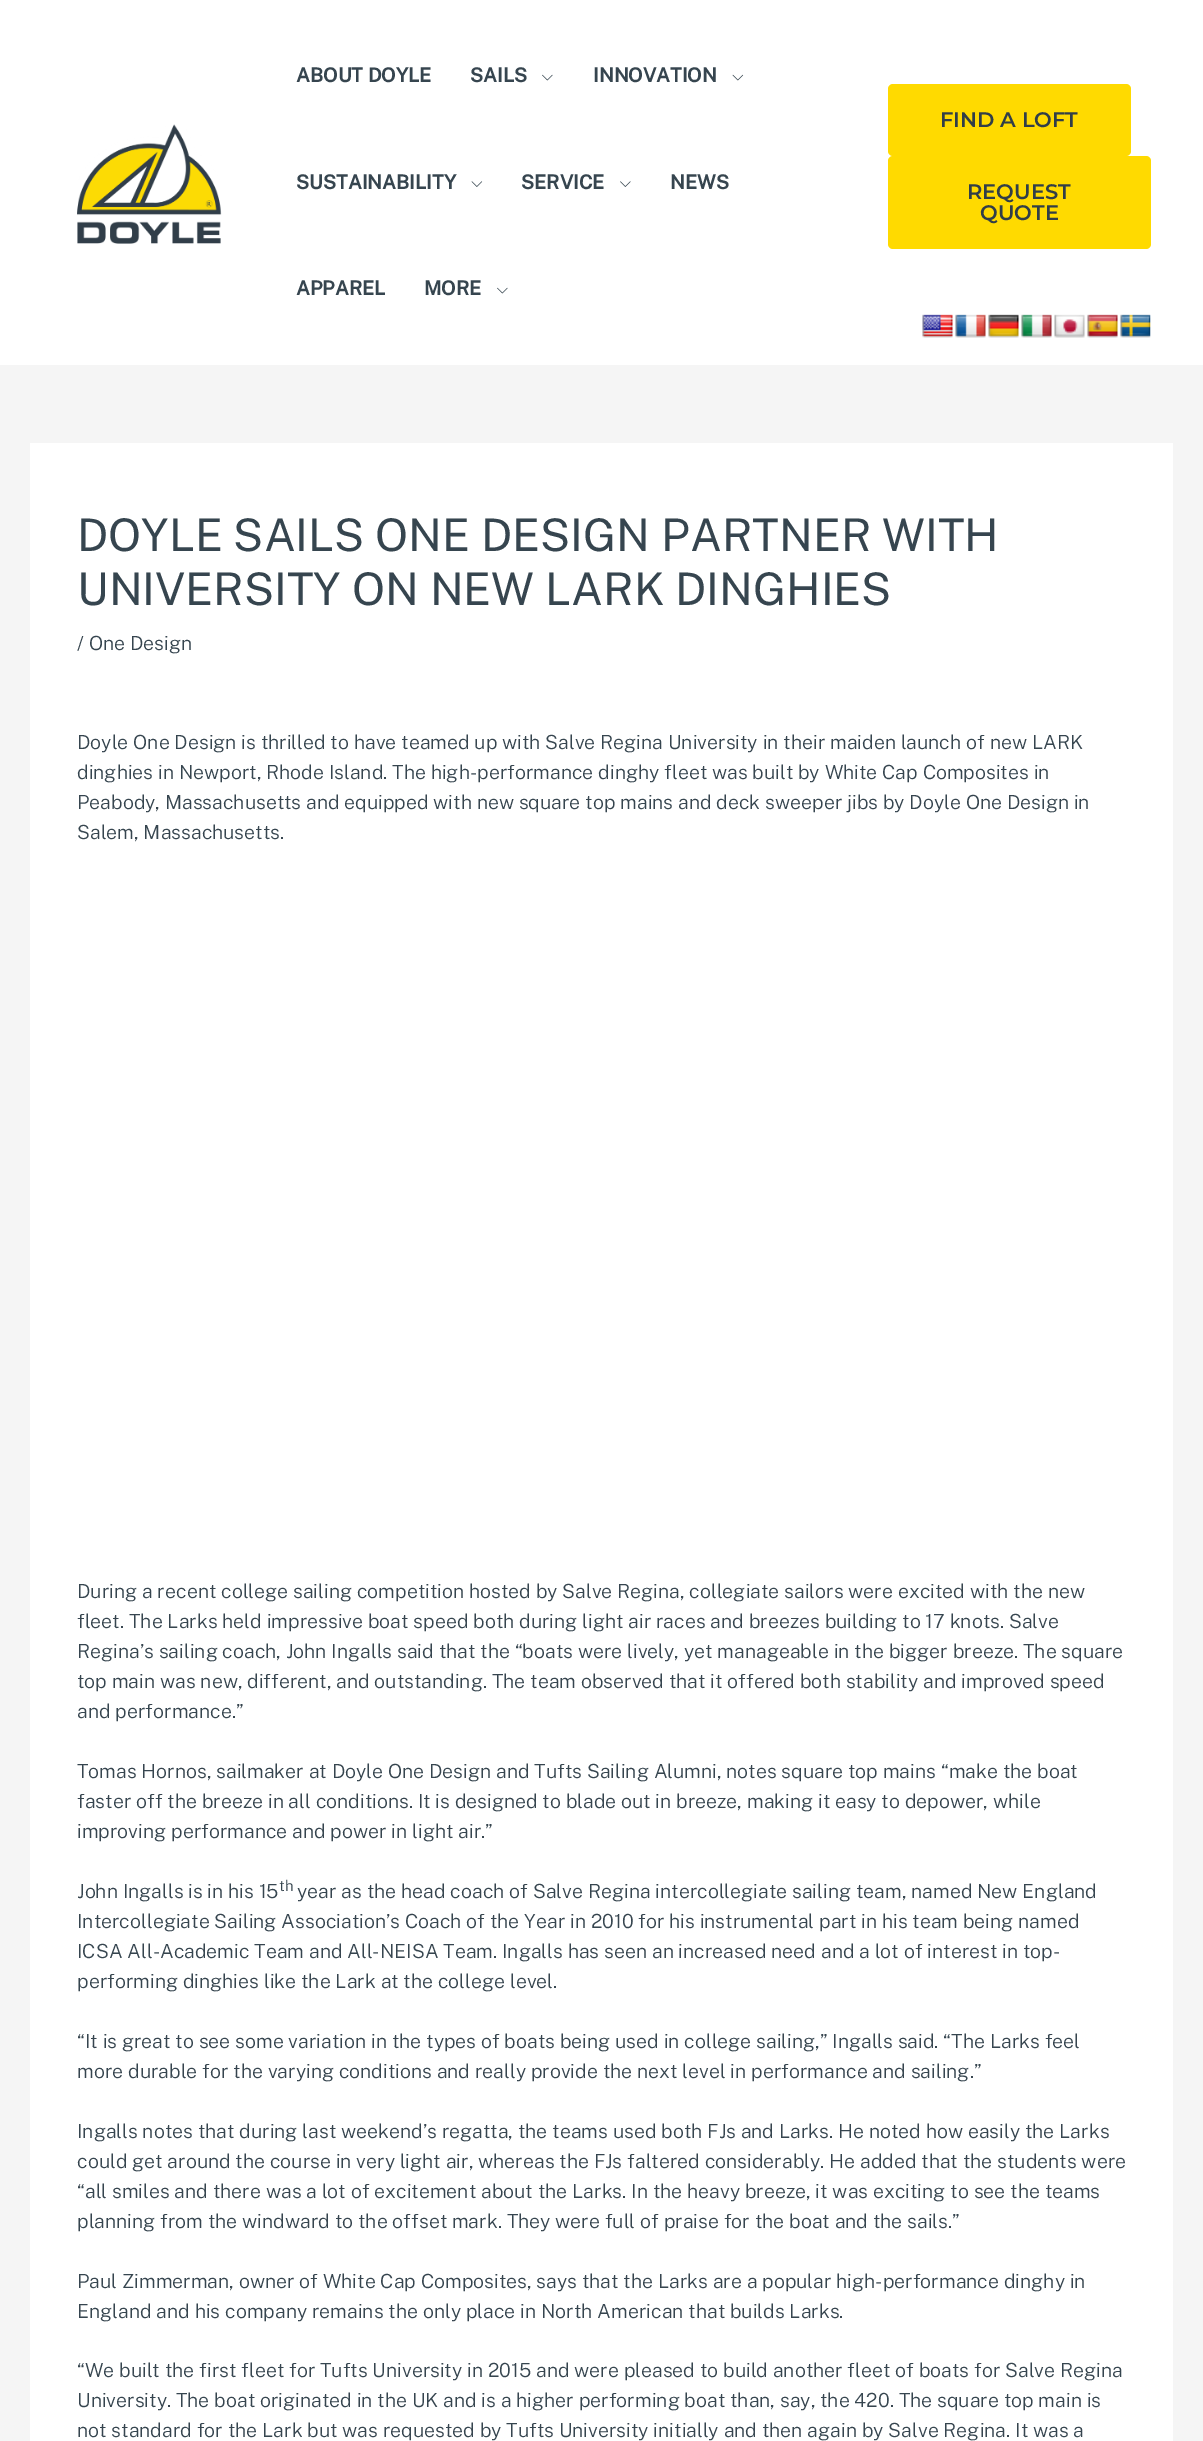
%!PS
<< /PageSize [1203 2441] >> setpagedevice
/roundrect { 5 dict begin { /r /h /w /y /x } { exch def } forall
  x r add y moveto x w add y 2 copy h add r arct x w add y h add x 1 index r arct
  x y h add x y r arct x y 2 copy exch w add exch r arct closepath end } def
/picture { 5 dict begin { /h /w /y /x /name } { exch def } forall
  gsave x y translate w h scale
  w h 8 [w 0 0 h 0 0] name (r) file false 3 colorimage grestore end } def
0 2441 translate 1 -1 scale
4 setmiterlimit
0.961 setgray
0 0 1203 2441 rectfill
1 setgray
0 0 1203 365 rectfill
(img1.rgb) 77 124 145 120 picture
/PublicSans-Bold [19.5 0 0 -19.5 0 0] selectfont
0.212 0.271 0.31 setrgbcolor
296 82 moveto (ABOUT DOYLE) show
470 82 moveto (SAILS) show
(img2.rgb) 542 74 11 7 picture
593 82 moveto (INNOVATION) show
(img3.rgb) 732 74 12 7 picture
296 189 moveto (SUSTAINABILITY) show
(img4.rgb) 471 181 12 6 picture
521 189 moveto (SERVICE) show
(img5.rgb) 620 181 11 6 picture
670 189 moveto (NEWS) show
296 295 moveto (APPAREL) show
424 295 moveto (MORE) show
(img2.rgb) 497 287 11 7 picture
1 0.855 0 setrgbcolor
888 84 243 72 5 roundrect fill
/Montserrat-Thin [21 0 0 -21 0 0] selectfont
0.192 0.243 0.282 setrgbcolor
940 127 moveto (FIND A LOFT) show
1 0.855 0 setrgbcolor
888 156 263 93 5 roundrect fill
0.192 0.243 0.282 setrgbcolor
967 199 moveto (REQUEST) show
980 220 moveto (QUOTE) show
(img6.rgb) 922 314 31 24 picture
(img7.rgb) 955 314 31 24 picture
(img8.rgb) 988 314 31 24 picture
(img9.rgb) 1021 314 31 24 picture
(img10.rgb) 1054 314 31 24 picture
(img11.rgb) 1087 314 31 24 picture
(img12.rgb) 1120 314 31 24 picture
1 setgray
30 443 1143 1998 rectfill
/PublicSans-Regular [45 0 0 -45 0 0] selectfont
0.212 0.271 0.31 setrgbcolor
77 551 moveto (DOYLE SAILS ONE DESIGN PARTNER WITH) show
77 605 moveto (UNIVERSITY ON NEW LARK DINGHIES) show
/PublicSans-Light [19.5 0 0 -19.5 0 0] selectfont
77 650 moveto (/ One Design) show
77 749 moveto (Doyle One Design is thrilled to have teamed up with Salve Regina University in their maiden launch of new LARK) show
77 779 moveto (dinghies in Newport, Rhode Island. The high-performance dinghy fleet was built by White Cap Composites in) show
77 809 moveto (Peabody, Massachusetts and equipped with new square top mains and deck sweeper jibs by Doyle One Design in) show
77 839 moveto (Salem, Massachusetts.) show
77 1598 moveto (During a recent college sailing competition hosted by Salve Regina, collegiate sailors were excited with the new) show
77 1628 moveto (fleet. The Larks held impressive boat speed both during light air races and breezes building to 17 knots. Salve) show
77 1658 moveto (Regina’s sailing coach, John Ingalls said that the “boats were lively, yet manageable in the bigger breeze. The square) show
77 1688 moveto (top main was new, different, and outstanding. The team observed that it offered both stability and improved speed) show
77 1718 moveto (and performance.”) show
77 1778 moveto (Tomas Hornos, sailmaker at Doyle One Design and Tufts Sailing Alumni, notes square top mains “make the boat) show
77 1808 moveto (faster off the breeze in all conditions. It is designed to blade out in breeze, making it easy to depower, while) show
77 1838 moveto (improving performance and power in light air.”) show
77 1898 moveto (John Ingalls is in his 15) show
/PublicSans-Light [15 0 0 -15 0 0] selectfont
279 1891 moveto (th) show
/PublicSans-Light [19.5 0 0 -19.5 0 0] selectfont
297 1898 moveto (year as the head coach of Salve Regina intercollegiate sailing team, named New England) show
77 1928 moveto (Intercollegiate Sailing Association’s Coach of the Year in 2010 for his instrumental part in his team being named) show
77 1958 moveto (ICSA All-Academic Team and All-NEISA Team. Ingalls has seen an increased need and a lot of interest in top-) show
77 1988 moveto (performing dinghies like the Lark at the college level.) show
77 2048 moveto (“It is great to see some variation in the types of boats being used in college sailing,” Ingalls said. “The Larks feel) show
77 2078 moveto (more durable for the varying conditions and really provide the next level in performance and sailing.”) show
77 2138 moveto (Ingalls notes that during last weekend’s regatta, the teams used both FJs and Larks. He noted how easily the Larks) show
77 2168 moveto (could get around the course in very light air, whereas the FJs faltered considerably. He added that the students were) show
77 2198 moveto (“all smiles and there was a lot of excitement about the Larks. In the heavy breeze, it was exciting to see the teams) show
77 2228 moveto (planning from the windward to the offset mark. They were full of praise for the boat and the sails.”) show
77 2288 moveto (Paul Zimmerman, owner of White Cap Composites, says that the Larks are a popular high-performance dinghy in) show
77 2318 moveto (England and his company remains the only place in North American that builds Larks.) show
77 2377 moveto (“We built the first fleet for Tufts University in 2015 and were pleased to build another fleet of boats for Salve Regina) show
77 2407 moveto (University. The boat originated in the UK and is a higher performing boat than, say, the 420. The square top main is) show
77 2437 moveto (not standard for the Lark but was requested by Tufts University initially and then again by Salve Regina. It was a) show
showpage
